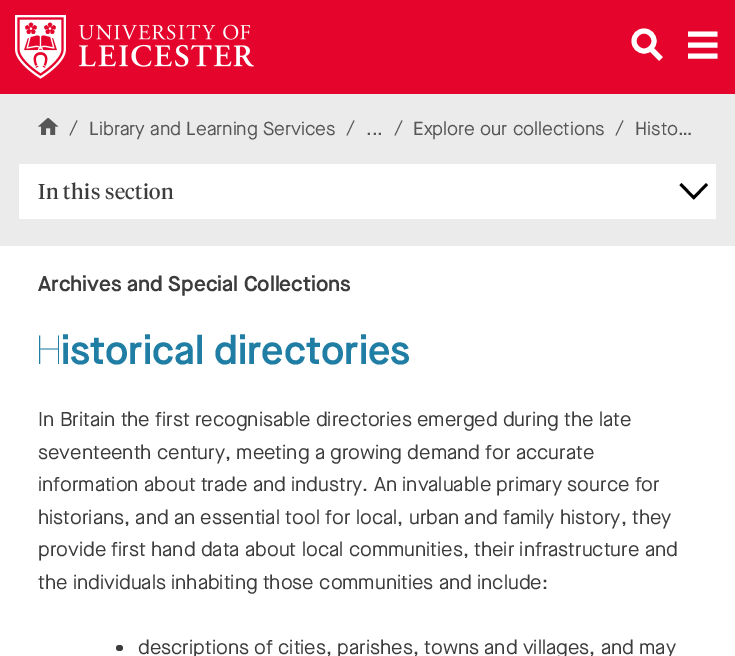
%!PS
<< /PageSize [735 656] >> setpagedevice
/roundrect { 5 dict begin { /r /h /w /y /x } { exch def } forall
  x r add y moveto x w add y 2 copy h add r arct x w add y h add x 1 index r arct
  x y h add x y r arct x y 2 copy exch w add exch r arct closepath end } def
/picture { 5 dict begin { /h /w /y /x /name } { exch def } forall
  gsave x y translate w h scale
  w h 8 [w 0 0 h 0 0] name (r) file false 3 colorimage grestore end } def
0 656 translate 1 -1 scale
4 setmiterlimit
1 setgray
0 0 735 656 rectfill
0.894 0.016 0.173 setrgbcolor
0 0 735 94 rectfill
(img1.rgb) 15 15 239 64 picture
1 setgray
5 setlinewidth
newpath 651 49 moveto 661 59 lineto stroke
newpath 644 41 10 0 360 arc closepath stroke
gsave
688 28 35 35 rectclip
newpath 687.5 34 moveto 717.5 34 lineto 687.5 45 moveto 717.5 45 lineto 687.5 56 moveto 717.5 56 lineto stroke
grestore
0.922 setgray
0 94 735 152 rectfill
(img2.rgb) 38 118 21 17 picture
/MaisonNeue-Regular [20 0 0 -20 0 0] selectfont
0.337 setgray
69 135 moveto (/) show
/MaisonNeue-Regular [18.75 0 0 -18.75 0 0] selectfont
89 135 moveto (Library and Learning Services) show
/MaisonNeue-Regular [20 0 0 -20 0 0] selectfont
346 135 moveto (/) show
/MaisonNeue-Regular [18.75 0 0 -18.75 0 0] selectfont
366 135 moveto (...) show
/MaisonNeue-Regular [20 0 0 -20 0 0] selectfont
394 135 moveto (/) show
/MaisonNeue-Regular [18.75 0 0 -18.75 0 0] selectfont
413 135 moveto (Explore our collections) show
/MaisonNeue-Regular [20 0 0 -20 0 0] selectfont
615 135 moveto (/) show
/MaisonNeue-Regular [18.75 0 0 -18.75 0 0] selectfont
635 135 moveto (Histo…) show
1 setgray
19 164 697 55 rectfill
/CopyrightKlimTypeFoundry-Regular [21.25 0 0 -21.25 0 0] selectfont
0.235 setgray
38 199 moveto 0.4 0 (In this section) ashow
0 setgray
newpath 695.5 197.5 moveto 693.5 199.5 lineto 679.5 185 lineto 681.5 183 lineto closepath fill
newpath 694 199.5 moveto 692 197.5 lineto 706 183 lineto 708 185 lineto closepath fill
/MaisonNeue-SemiBold [21.25 0 0 -21.25 0 0] selectfont
0.235 setgray
38 291 moveto (Archives and Special Collections) show
/NotoSans-Thin [40 0 0 -40 0 0] selectfont
0.125 0.494 0.643 setrgbcolor
35 364 moveto (H) show
/MaisonNeue-SemiBold [40 0 0 -40 0 0] selectfont
61 364 moveto (istorical directories) show
/MaisonNeue-Regular [20 0 0 -20 0 0] selectfont
0.235 setgray
38 426 moveto (In Britain the first recognisable directories emerged during the late) show
38 459 moveto (seventeenth century, meeting a growing demand for accurate) show
38 491 moveto (information about trade and industry. An invaluable primary source for) show
38 524 moveto (historians, and an essential tool for local, urban and family history, they) show
38 556 moveto (provide first hand data about local communities, their infrastructure and) show
38 589 moveto (the individuals inhabiting those communities and include:) show
116 645 7 6 3 roundrect fill
138 654 moveto (descriptions of cities, parishes, towns and villages, and may) show
showpage
